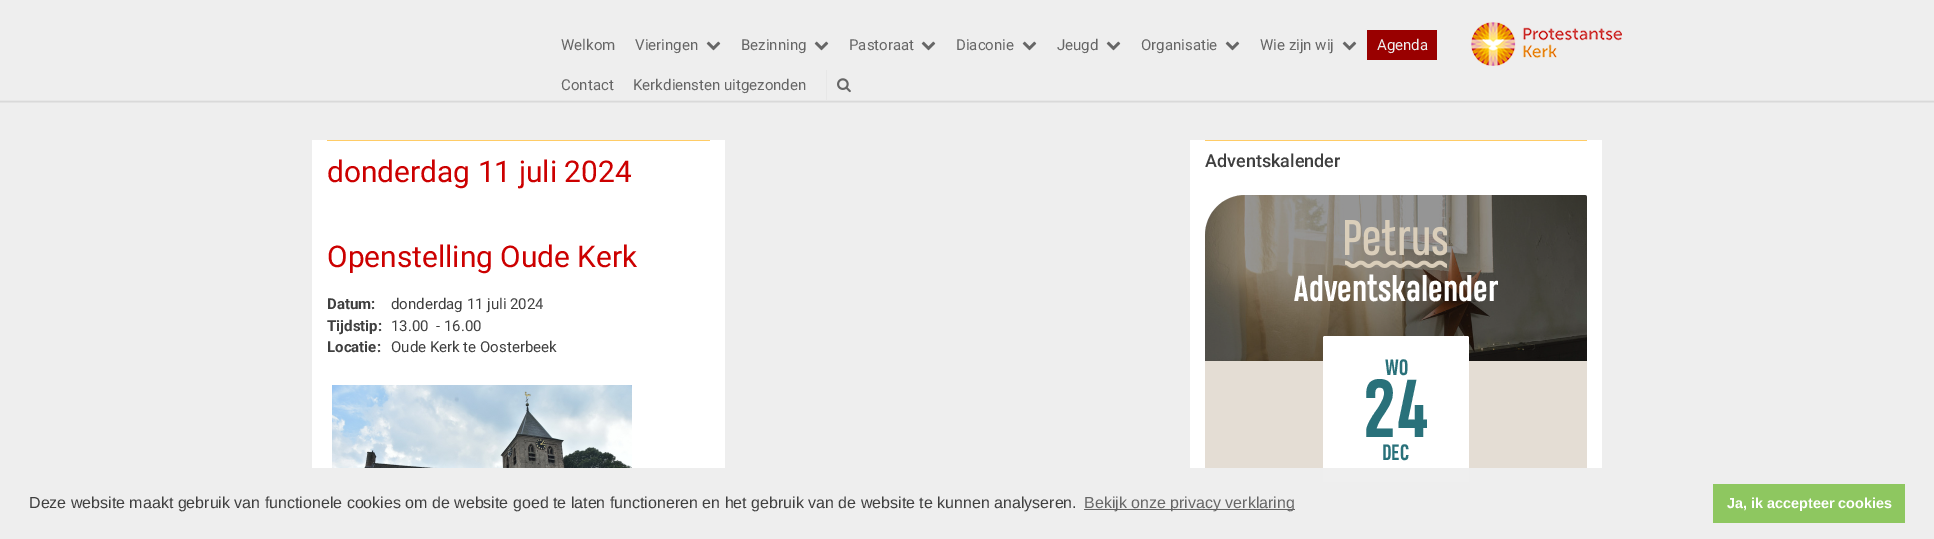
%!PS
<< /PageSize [1934 539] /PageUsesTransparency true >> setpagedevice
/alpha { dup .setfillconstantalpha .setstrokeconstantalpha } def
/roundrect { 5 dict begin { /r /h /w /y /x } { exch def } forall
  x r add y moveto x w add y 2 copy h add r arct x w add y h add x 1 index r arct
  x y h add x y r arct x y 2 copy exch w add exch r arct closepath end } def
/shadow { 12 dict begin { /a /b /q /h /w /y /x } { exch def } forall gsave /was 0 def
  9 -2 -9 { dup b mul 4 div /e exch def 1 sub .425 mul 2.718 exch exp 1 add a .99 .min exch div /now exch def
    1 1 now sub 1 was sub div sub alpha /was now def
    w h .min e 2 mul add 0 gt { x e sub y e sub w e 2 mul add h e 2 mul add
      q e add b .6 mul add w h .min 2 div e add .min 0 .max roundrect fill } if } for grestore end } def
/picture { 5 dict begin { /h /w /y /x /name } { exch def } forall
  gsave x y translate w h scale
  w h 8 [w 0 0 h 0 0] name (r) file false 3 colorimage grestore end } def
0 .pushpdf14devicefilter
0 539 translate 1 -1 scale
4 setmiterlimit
0.933 setgray
0 0 1934 539 rectfill
gsave
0 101 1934 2 rectclip
0 setgray
0 0 1934 101 0 1.5 0.22 shadow
grestore
0.906 setgray
0 100 1934 1 rectfill
/Roboto-Regular [15 0 0 -15 0 0] selectfont
0.4 setgray
561 50 moveto (Welkom) show
635 50 moveto (Vieringen) show
(img1.rgb) 706 41 15 10 picture
741 50 moveto (Bezinning) show
(img1.rgb) 814 41 15 10 picture
849 50 moveto (Pastoraat) show
(img1.rgb) 921 41 15 10 picture
956 50 moveto (Diaconie) show
(img1.rgb) 1022 41 15 10 picture
1057 50 moveto (Jeugd) show
(img1.rgb) 1106 41 15 10 picture
1141 50 moveto (Organisatie) show
(img1.rgb) 1225 41 15 10 picture
1260 50 moveto (Wie zijn wij) show
(img1.rgb) 1342 41 15 10 picture
0.6 0 0 setrgbcolor
1367 30 70 30 rectfill
0.933 setgray
1377 50 moveto (Agenda) show
0.4 setgray
561 90 moveto (Contact) show
633 90 moveto (Kerkdiensten uitgezonden) show
0.906 setgray
826 70 1 30 rectfill
(img2.rgb) 837 78 14 15 picture
(img3.rgb) 1471 22 151 44 picture
1 setgray
312 140 413 328 rectfill
1 0.8 0.4 setrgbcolor
327 140 383 1 rectfill
/Roboto-Regular [29.9 0 0 -29.9 0 0] selectfont
0.8 0 0 setrgbcolor
327 182 moveto (donderdag 11 juli 2024) show
327 267 moveto (Openstelling Oude Kerk) show
/Roboto-Bold [15 0 0 -15 0 0] selectfont
0.247 setgray
327 309 moveto (Datum:) show
/Roboto-Regular [15 0 0 -15 0 0] selectfont
391 309 moveto (donderdag 11 juli 2024) show
/Roboto-Bold [15 0 0 -15 0 0] selectfont
327 331 moveto (Tijdstip:) show
/Roboto-Regular [15 0 0 -15 0 0] selectfont
391 331 moveto (13.00) show
436 331 moveto (- 16.00) show
/Roboto-Bold [15 0 0 -15 0 0] selectfont
327 352 moveto (Locatie:) show
/Roboto-Regular [15 0 0 -15 0 0] selectfont
391 352 moveto (Oude Kerk te Oosterbeek) show
(img4.rgb) 332 385 300 83 picture
1 setgray
1190 140 412 328 rectfill
1 0.8 0.4 setrgbcolor
1205 140 382 1 rectfill
/Roboto-Medium [18 0 0 -18 0 0] selectfont
0.247 setgray
1205 167 moveto (Adventskalender) show
(img5.rgb) 1205 195 382 166 picture
0.4 alpha
0 setgray
newpath 1245 195 moveto 1585 195 lineto 1586 195 1587 196 1587 197 curveto 1587 361 lineto 1205 361 lineto 1205 235 lineto 1205 213 1223 195 1245 195 curveto closepath fill
1 alpha
(img6.rgb) 1345 220 102 48 picture
/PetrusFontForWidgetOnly-Bold [34 0 0 -34 0 0] selectfont
1 setgray
1294 301 moveto (Adventskalender) show
0.894 0.867 0.831 setrgbcolor
1205 361 382 107 rectfill
1 setgray
1323 336 146 146 2 roundrect fill
/PetrusFontForWidgetOnly-Bold [21 0 0 -21 0 0] selectfont
0.161 0.443 0.478 setrgbcolor
1385 375 moveto (WO) show
/PetrusFontForWidgetOnly-Bold [77 0 0 -77 0 0] selectfont
1363 437 moveto (24) show
/PetrusFontForWidgetOnly-Bold [21 0 0 -21 0 0] selectfont
1382 460 moveto (DEC) show
0.937 setgray
1323 468 146 14 rectfill
/LiberationSans-Regular [16 0 0 -16 0 0] selectfont
0.247 setgray
29 508 moveto (Deze website maakt gebruik van functionele cookies om de website goed te laten functioneren en het gebruik van de website te kunnen analyseren.) show
0.388 setgray
1084 509 211 1 rectfill
0.4 setgray
1084 508 moveto (Bekijk onze privacy verklaring) show
0.557 0.78 0.376 setrgbcolor
1713 484 192 39 rectfill
/LiberationSans-Bold [14.4 0 0 -14.4 0 0] selectfont
1 setgray
1727 508 moveto (Ja, ik accepteer cookies) show
.poppdf14devicefilter showpage
